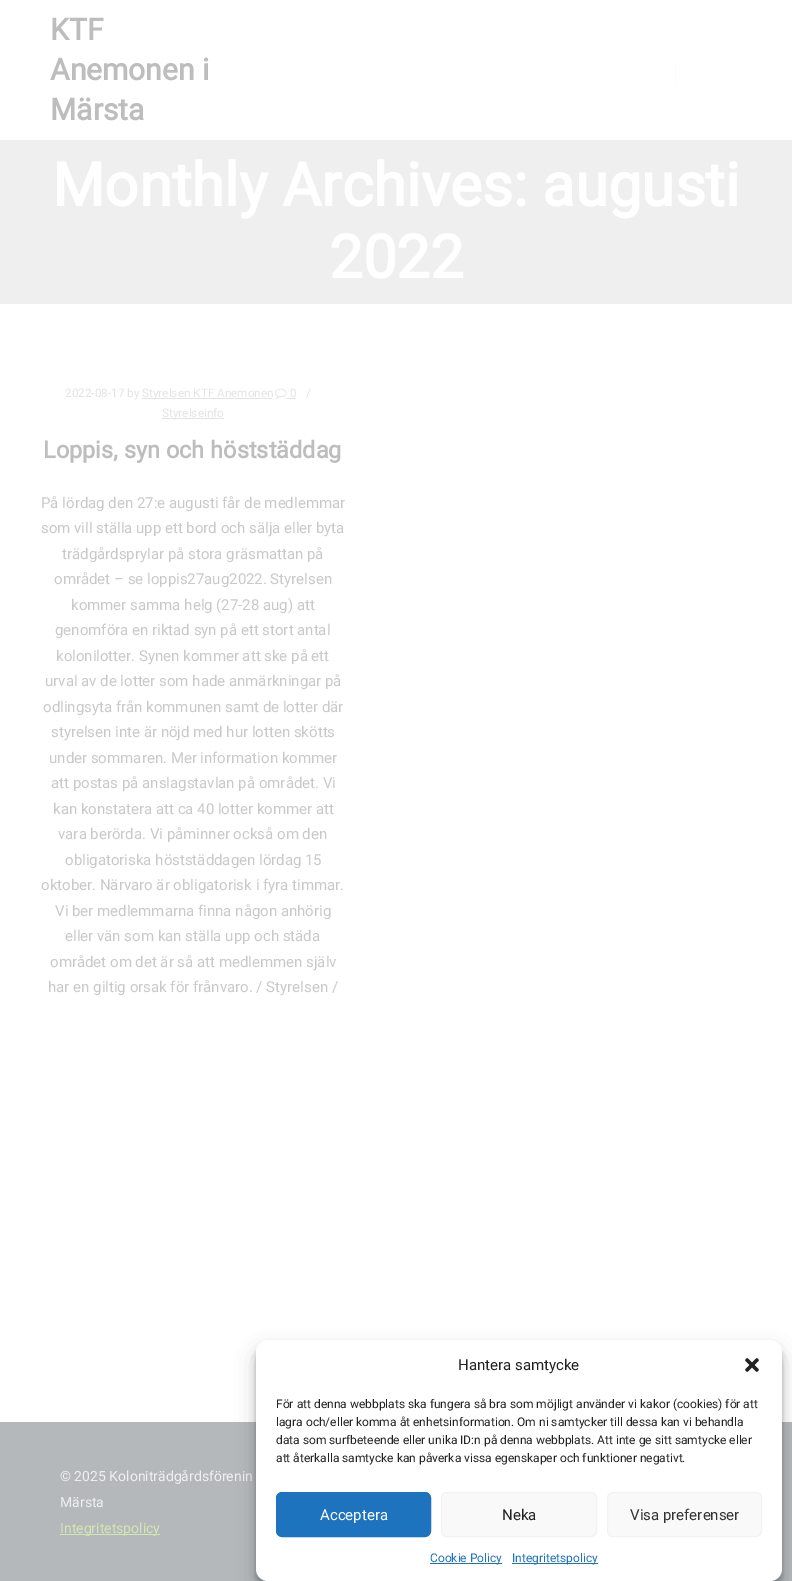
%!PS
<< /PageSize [792 1581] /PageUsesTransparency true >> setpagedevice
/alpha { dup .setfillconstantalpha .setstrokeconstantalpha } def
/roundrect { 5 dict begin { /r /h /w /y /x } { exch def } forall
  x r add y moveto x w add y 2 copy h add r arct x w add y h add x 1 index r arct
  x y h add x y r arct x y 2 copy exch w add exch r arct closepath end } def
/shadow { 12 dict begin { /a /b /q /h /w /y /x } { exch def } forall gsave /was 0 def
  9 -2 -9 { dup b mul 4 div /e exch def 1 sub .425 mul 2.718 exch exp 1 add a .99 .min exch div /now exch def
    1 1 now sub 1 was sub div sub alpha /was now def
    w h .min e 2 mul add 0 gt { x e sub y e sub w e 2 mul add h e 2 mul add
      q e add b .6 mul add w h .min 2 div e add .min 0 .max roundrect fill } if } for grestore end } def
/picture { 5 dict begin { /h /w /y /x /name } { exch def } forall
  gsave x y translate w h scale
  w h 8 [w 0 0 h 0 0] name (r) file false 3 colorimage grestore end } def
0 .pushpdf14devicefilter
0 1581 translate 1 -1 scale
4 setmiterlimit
1 setgray
0 0 792 1581 rectfill
/Roboto-Bold [30 0 0 -30 0 0] selectfont
0.741 setgray
50 40 moveto (KTF) show
50 80 moveto (Anemonen i) show
50 120 moveto (Märsta) show
0.984 setgray
675 58 1 25 rectfill
0.937 setgray
0 140 792 164 rectfill
/Roboto-Bold [60 0 0 -60 0 0] selectfont
1 setgray
52 206 moveto (Monthly Archives: augusti) show
329 278 moveto (2022) show
/Roboto-Regular [11.75 0 0 -11.75 0 0] selectfont
0.89 setgray
65 397 moveto (2022-08-17 by) show
142 398 130 1 rectfill
142 397 moveto (Styrelsen KTF Anemonen) show
(img1.rgb) 275 388 12 11 picture
290 397 moveto (0) show
287 398 9 1 rectfill
306 397 moveto (/) show
162 418 62 1 rectfill
162 417 moveto (Styrelseinfo) show
/Roboto-Bold [23.5 0 0 -23.5 0 0] selectfont
0.741 setgray
43 458 moveto (Loppis, syn och höststäddag) show
/Roboto-Regular [15 0 0 -15 0 0] selectfont
0.788 setgray
41 508 moveto (På lördag den 27:e augusti får de medlemmar) show
41 533 moveto (som vill ställa upp ett bord och sälja eller byta) show
62 559 moveto (trädgårdsprylar på stora gräsmattan på) show
54 584 moveto (området – se loppis27aug2022. Styrelsen) show
71 610 moveto (kommer samma helg \(27-28 aug\) att) show
55 635 moveto (genomföra en riktad syn på ett stort antal) show
56 661 moveto (kolonilotter. Synen kommer att ske på ett) show
45 686 moveto (urval av de lotter som hade anmärkningar på) show
43 712 moveto (odlingsyta från kommunen samt de lotter där) show
51 737 moveto (styrelsen inte är nöjd med hur lotten skötts) show
49 763 moveto (under sommaren. Mer information kommer) show
51 788 moveto (att postas på anslagstavlan på området. Vi) show
53 814 moveto (kan konstatera att ca 40 lotter kommer att) show
58 839 moveto (vara berörda. Vi påminner också om den) show
65 865 moveto (obligatoriska höststäddagen lördag 15) show
41 890 moveto (oktober. Närvaro är obligatorisk i fyra timmar.) show
55 916 moveto (Vi ber medlemmarna finna någon anhörig) show
65 941 moveto (eller vän som kan ställa upp och städa) show
50 967 moveto (området om det är så att medlemmen själv) show
48 992 moveto (har en giltig orsak för frånvaro. / Styrelsen /) show
0.706 0.722 0.733 setrgbcolor
0 1422 792 159 rectfill
/Roboto-Regular [14 0 0 -14 0 0] selectfont
0.937 setgray
60 1481 moveto (© 2025 Koloniträdgårdsförenin) show
60 1507 moveto (Märsta) show
0.824 0.898 0.698 setrgbcolor
60 1534 100 1 rectfill
60 1533 moveto (Integritetspolicy) show
0 setgray
256 1346 526 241 12 3 0.23 shadow
256 1350 526 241 12 10 0.19 shadow
1 setgray
256 1340 526 241 12 roundrect fill
/Roboto-Regular [15 0 0 -15 0 0] selectfont
0.133 setgray
458 1370 moveto (Hantera samtycke) show
(img2.rgb) 745 1358 14 14 picture
/Roboto-Regular [12 0 0 -12 0 0] selectfont
276 1408 moveto (För att denna webbplats ska fungera så bra som möjligt använder vi kakor \(cookies\) för att) show
276 1426 moveto (lagra och/eller komma åt enhetsinformation. Om ni samtycker till dessa kan vi behandla) show
276 1444 moveto (data som surfbeteende eller unika ID:n på denna webbplats. Att inte ge sitt samtycke eller) show
276 1462 moveto (att återkalla samtycke kan påverka vissa egenskaper och funktioner negativt.) show
0.118 0.451 0.745 setrgbcolor
276.5 1492.5 154 44 5.5 roundrect gsave fill grestore
stroke
/Roboto-Regular [15 0 0 -15 0 0] selectfont
1 setgray
320 1520 moveto (Acceptera) show
0.976 setgray
441.5 1492.5 155 44 5.5 roundrect gsave fill grestore
0.949 setgray
stroke
0.133 setgray
502 1520 moveto (Neka) show
0.976 setgray
607.5 1492.5 154 44 5.5 roundrect gsave fill grestore
0.949 setgray
stroke
0.2 setgray
630 1520 moveto (Visa preferenser) show
0.118 0.451 0.745 setrgbcolor
430 1563 72 1 rectfill
/Roboto-Regular [12 0 0 -12 0 0] selectfont
430 1562 moveto (Cookie Policy) show
512 1563 86 1 rectfill
512 1562 moveto (Integritetspolicy) show
.poppdf14devicefilter showpage
